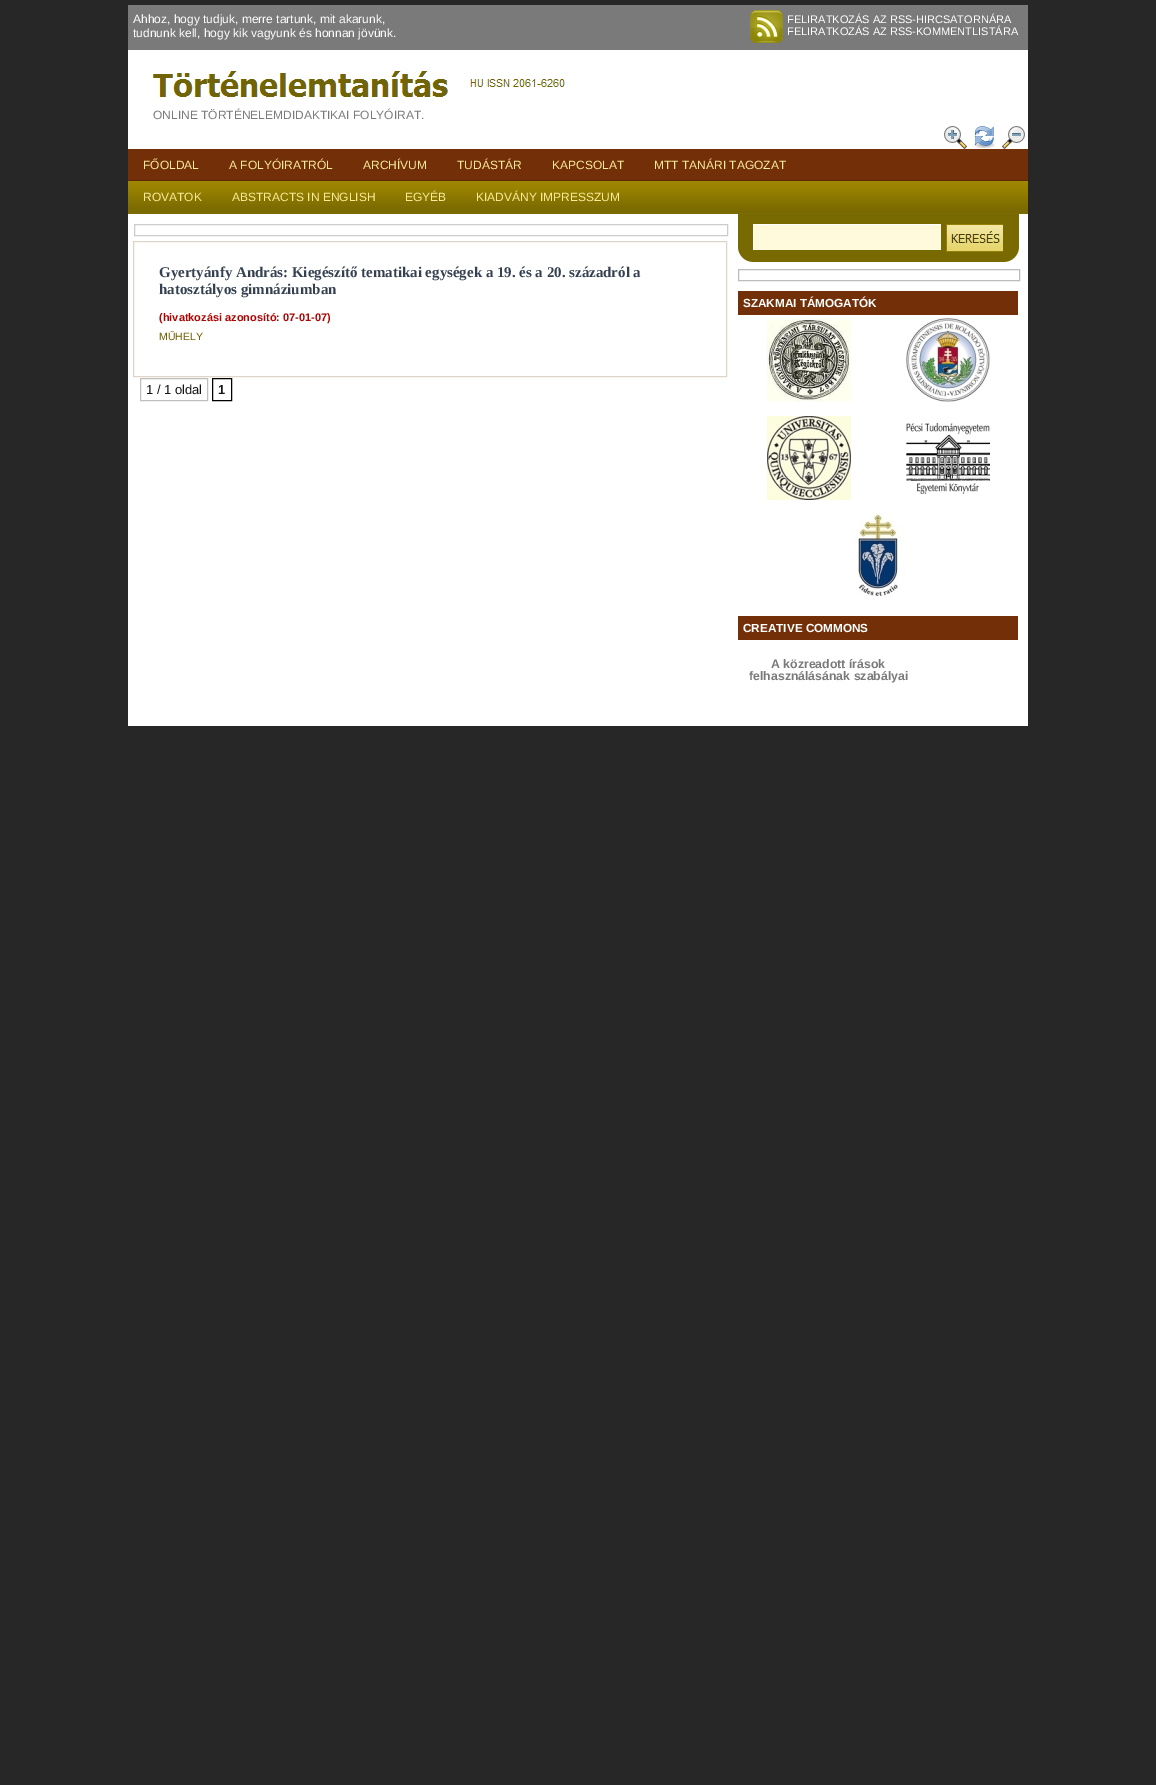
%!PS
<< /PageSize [1156 1785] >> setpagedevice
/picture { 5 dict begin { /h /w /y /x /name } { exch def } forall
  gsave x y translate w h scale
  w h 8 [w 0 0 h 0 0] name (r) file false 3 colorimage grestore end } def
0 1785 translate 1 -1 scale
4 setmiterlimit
0.153 setgray
0 0 1156 1785 rectfill
0.478 setgray
128 5 900 45 rectfill
/LiberationSans-Regular [12 0 0 -12 0 0] selectfont
1 setgray
133 23 moveto (Ahhoz, hogy tudjuk, merre tartunk, mit akarunk,) show
133 37 moveto (tudnunk kell, hogy kik vagyunk és honnan jövünk.) show
(img1.rgb) 750 10 34 33 picture
/LiberationSans-Regular [11 0 0 -11 0 0] selectfont
787 23 moveto (FELIRATKOZÁS AZ RSS-HIRCSATORNÁRA) show
787 35 moveto (FELIRATKOZÁS AZ RSS-KOMMENTLISTÁRA) show
128 50 900 99 rectfill
(img2.rgb) 153 71 412 26 picture
/LiberationSans-Regular [12 0 0 -12 0 0] selectfont
0.478 setgray
153 119 moveto (ONLINE TÖRTÉNELEMDIDAKTIKAI FOLYÓIRAT.) show
(img3.rgb) 944 126 23 23 picture
(img4.rgb) 974 126 21 23 picture
(img5.rgb) 1002 126 23 23 picture
0.451 0.184 0.031 setrgbcolor
128 149 900 31 rectfill
0.357 0.145 0.024 setrgbcolor
128 180 900 1 rectfill
0.976 0.922 0.604 setrgbcolor
143 169 moveto (FŐOLDAL) show
229 169 moveto (A FOLYÓIRATRÓL) show
363 169 moveto (ARCHÍVUM) show
457 169 moveto (TUDÁSTÁR) show
552 169 moveto (KAPCSOLAT) show
654 169 moveto (MTT TANÁRI TAGOZAT) show
(img6.rgb) 128 181 900 33 picture
143 201 moveto (ROVATOK) show
232 201 moveto (ABSTRACTS IN ENGLISH) show
405 201 moveto (EGYÉB) show
476 201 moveto (KIADVÁNY IMPRESSZUM) show
1 setgray
128 214 900 512 rectfill
0.8 setgray
134.5 224.5 593 11 rectstroke
0.871 0.835 0.788 setrgbcolor
133.5 241.5 593 135 rectstroke
/LiberationSerif-Bold [14.95 0 0 -14.95 0 0] selectfont
0.208 0.255 0.318 setrgbcolor
159 277 moveto (Gyertyánfy András: Kiegészítő tematikai egységek a 19. és a 20. századról a) show
159 294 moveto (hatosztályos gimnáziumban) show
/LiberationSans-Bold [11 0 0 -11 0 0] selectfont
0.675 0.024 0.016 setrgbcolor
159 321 moveto (\(hivatkozási azonosító: 07-01-07\)) show
/LiberationSans-Regular [10.5 0 0 -10.5 0 0] selectfont
0.439 0.38 0.008 setrgbcolor
159 340 moveto (MŰHELY) show
0.749 setgray
140.5 378.5 67 22 rectstroke
/LiberationSans-Regular [13 0 0 -13 0 0] selectfont
0.086 0.082 0.078 setrgbcolor
146 394 moveto (1 / 1 oldal) show
0 setgray
212.5 378.5 19 22 rectstroke
/LiberationSans-Bold [13 0 0 -13 0 0] selectfont
0.086 0.082 0.078 setrgbcolor
218 394 moveto (1) show
(img7.rgb) 738 214 281 48 picture
1 setgray
753 224 188 26 rectfill
1 0.98 0.859 setrgbcolor
754 225 187 25 rectfill
(img8.rgb) 946 224 57 28 picture
0.737 setgray
738.5 269.5 281 11 rectstroke
0.447 0.184 0.031 setrgbcolor
738 291 280 24 rectfill
/LiberationSans-Bold [11.75 0 0 -11.75 0 0] selectfont
1 setgray
743 307 moveto (SZAKMAI TÁMOGATÓK) show
(img9.rgb) 767 318 84 84 picture
(img10.rgb) 906 318 84 84 picture
(img11.rgb) 767 416 84 84 picture
(img12.rgb) 906 423 84 71 picture
(img13.rgb) 855 514 51 82 picture
0.447 0.184 0.031 setrgbcolor
738 616 280 24 rectfill
1 setgray
743 632 moveto (CREATIVE COMMONS) show
/LiberationSans-Bold [12.3 0 0 -12.3 0 0] selectfont
0.478 setgray
771 668 moveto (A közreadott írások) show
749 680 moveto (felhasználásának szabályai) show
showpage
